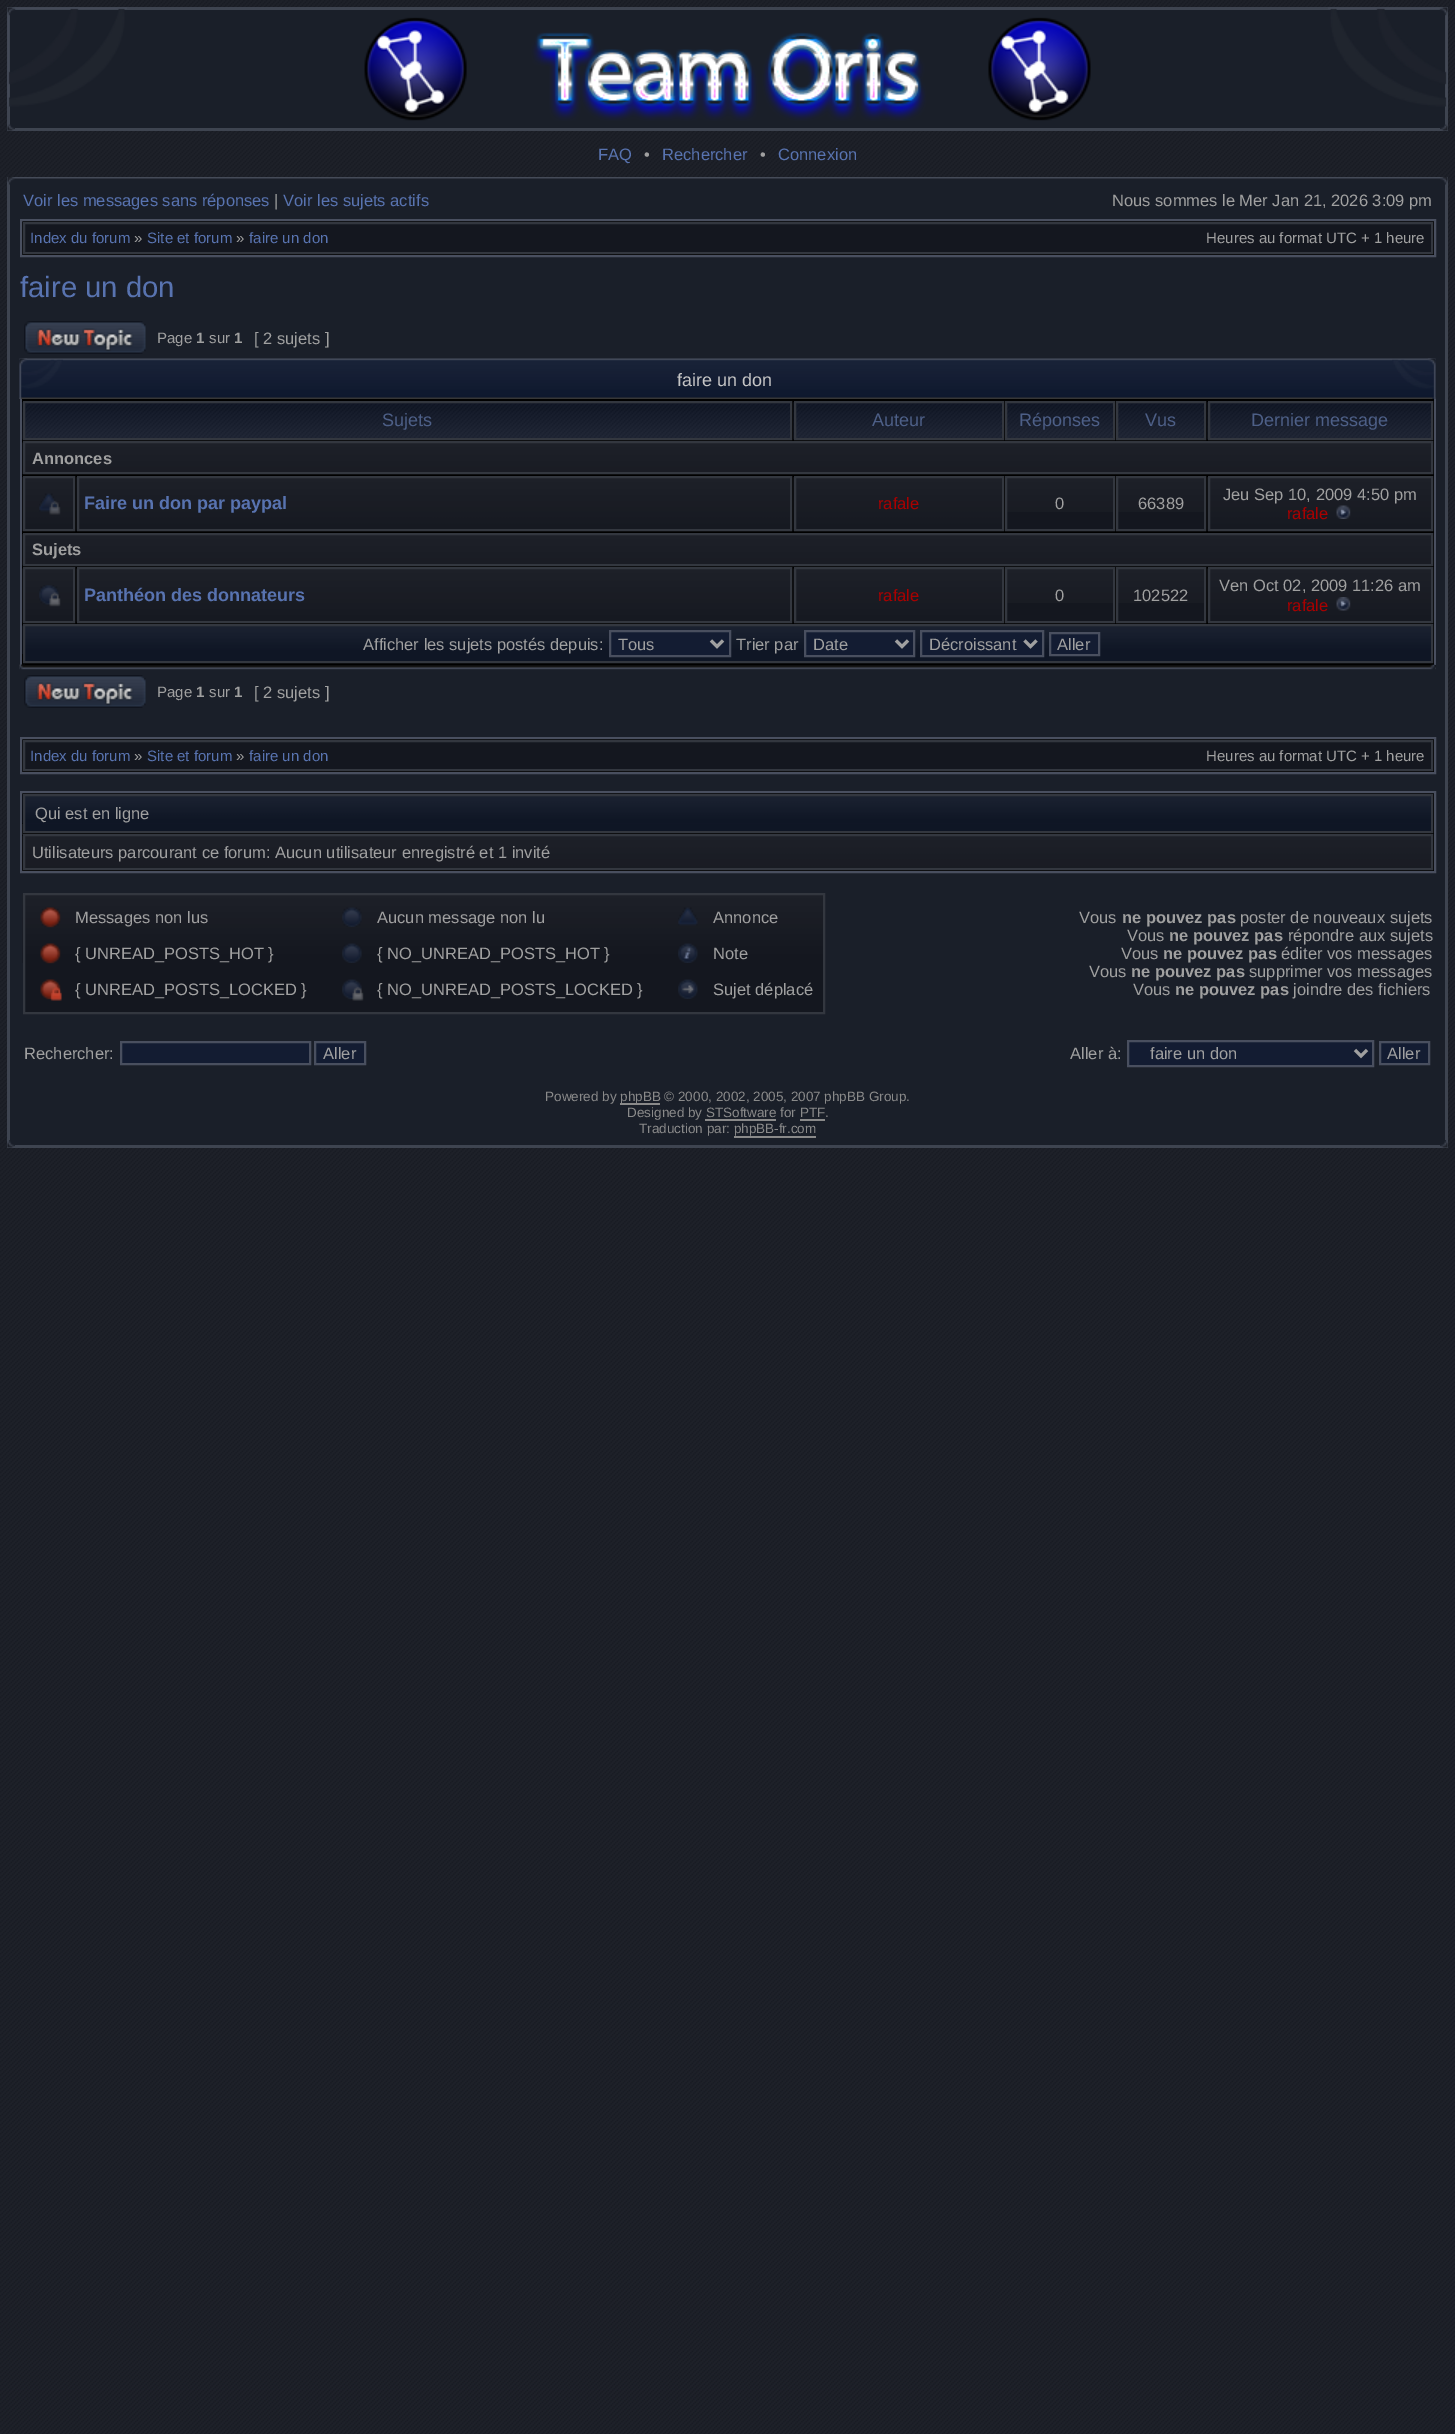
%!PS
<< /PageSize [1455 2434] /PageUsesTransparency true >> setpagedevice
/alpha { dup .setfillconstantalpha .setstrokeconstantalpha } def
/picture { 5 dict begin { /h /w /y /x /name } { exch def } forall
  gsave x y translate w h scale
  w h 8 [w 0 0 h 0 0] name (r) file false 3 colorimage grestore end } def
0 .pushpdf14devicefilter
0 2434 translate 1 -1 scale
4 setmiterlimit
1 setgray
0 0 1455 2434 rectfill
(img1.rgb) 0 0 1455 2434 picture
0.102 0.122 0.161 setrgbcolor
8 8 1440 123 rectfill
0.83 alpha
0.271 0.294 0.345 setrgbcolor
7 7 1441 3 rectfill
7 8 3 123 rectfill
0.84 alpha
0.271 0.294 0.341 setrgbcolor
1445 8 3 123 rectfill
8 128 1439 3 rectfill
1 alpha
(img2.rgb) 7 124 8 7 picture
(img3.rgb) 7 7 120 100 picture
(img4.rgb) 364 17 727 104 picture
(img5.rgb) 1440 124 8 7 picture
(img6.rgb) 1328 7 120 100 picture
/LiberationSans-Regular [16.5 0 0 -16.5 0 0] selectfont
0.345 0.451 0.69 setrgbcolor
598 160 moveto (FAQ) show
0.627 setgray
644 160 moveto (•) show
0.345 0.451 0.69 setrgbcolor
662 160 moveto (Rechercher) show
0.627 setgray
760 160 moveto (•) show
0.345 0.451 0.69 setrgbcolor
778 160 moveto (Connexion) show
0.102 0.122 0.161 setrgbcolor
8 177 1440 971 rectfill
(img7.rgb) 7 177 1441 2 picture
0.83 alpha
0.271 0.294 0.345 setrgbcolor
7 177 3 971 rectfill
0.84 alpha
0.271 0.294 0.341 setrgbcolor
1445 177 3 971 rectfill
0.83 alpha
0.271 0.294 0.345 setrgbcolor
8 1145 1439 3 rectfill
1 alpha
(img8.rgb) 7 1140 8 8 picture
(img9.rgb) 7 177 8 8 picture
0.345 0.451 0.69 setrgbcolor
23 206 moveto (Voir les messages sans réponses) show
0.627 setgray
274 206 moveto (|) show
0.345 0.451 0.69 setrgbcolor
283 206 moveto (Voir les sujets actifs) show
0.627 setgray
1112 206 moveto (Nous sommes le Mer Jan 21, 2026 3:09 pm) show
0 setgray
newpath 21 220 moveto 1435 220 lineto 1435 256 lineto 21 256 lineto closepath gsave fill grestore
0.286 0.31 0.373 setrgbcolor
2 setlinewidth
stroke
0.078 0.09 0.122 setrgbcolor
newpath 24 223 moveto 1432 223 lineto 1432 253 lineto 24 253 lineto closepath gsave fill grestore
0.2 0.216 0.247 setrgbcolor
stroke
/LiberationSans-Regular [15 0 0 -15 0 0] selectfont
0.345 0.451 0.69 setrgbcolor
30 243 moveto (Index du forum) show
0.627 setgray
134 243 moveto (») show
0.345 0.451 0.69 setrgbcolor
147 243 moveto (Site et forum) show
0.627 setgray
236 243 moveto (») show
0.345 0.451 0.69 setrgbcolor
249 243 moveto (faire un don) show
0.627 setgray
1206 243 moveto (Heures au format UTC + 1 heure) show
/LiberationSans-Regular [29.25 0 0 -29.25 0 0] selectfont
0.345 0.451 0.69 setrgbcolor
20 297 moveto (faire un don) show
(img10.rgb) 24 321 122 33 picture
/LiberationSans-Regular [15 0 0 -15 0 0] selectfont
0.627 setgray
157 343 moveto (Page) show
/LiberationSans-Bold [15 0 0 -15 0 0] selectfont
196 343 moveto (1) show
/LiberationSans-Regular [15 0 0 -15 0 0] selectfont
209 343 moveto (sur) show
/LiberationSans-Bold [15 0 0 -15 0 0] selectfont
234 343 moveto (1) show
/LiberationSans-Regular [16.5 0 0 -16.5 0 0] selectfont
254 344 moveto ([ 2 sujets ]) show
(img11.rgb) 19 664 1417 6 picture
(img12.rgb) 19 358 1417 41 picture
(img13.rgb) 19 358 44 41 picture
(img14.rgb) 1392 358 44 41 picture
/LiberationSans-Regular [18 0 0 -18 0 0] selectfont
0.769 setgray
677 386 moveto (faire un don) show
0 setgray
22 399 1412 266 rectfill
0.286 0.31 0.373 setrgbcolor
1434 399 2 266 rectfill
20 399 2 266 rectfill
(img15.rgb) 22 402 768 38 picture
0.2 0.216 0.247 setrgbcolor
24 402 767 37 rectstroke
0.302 0.373 0.529 setrgbcolor
382 426 moveto (Sujets) show
(img16.rgb) 793 402 209 38 picture
0.2 0.216 0.247 setrgbcolor
795 402 208 37 rectstroke
0.302 0.373 0.529 setrgbcolor
872 426 moveto (Auteur) show
(img17.rgb) 1007 403 106 35 picture
0.2 0.216 0.247 setrgbcolor
1006 402 108 37 rectstroke
0.302 0.373 0.529 setrgbcolor
1019 426 moveto (Réponses) show
(img18.rgb) 1118 403 86 35 picture
0.2 0.216 0.247 setrgbcolor
1117 402 88 37 rectstroke
0.302 0.373 0.529 setrgbcolor
1145 426 moveto (Vus) show
(img19.rgb) 1207 402 224 38 picture
0.2 0.216 0.247 setrgbcolor
1209 402 223 37 rectstroke
0.302 0.373 0.529 setrgbcolor
1251 426 moveto (Dernier message) show
(img20.rgb) 22 442 1409 32 picture
0.2 0.216 0.247 setrgbcolor
24 442 1408 31 rectstroke
/LiberationSans-Bold [16.5 0 0 -16.5 0 0] selectfont
0.627 setgray
32 464 moveto (Annonces) show
(img21.rgb) 22 477 51 54 picture
0.2 0.216 0.247 setrgbcolor
24 477 50 53 rectstroke
(img22.rgb) 39 493 22 22 picture
(img23.rgb) 76 477 714 54 picture
78 477 713 53 rectstroke
/LiberationSans-Bold [18 0 0 -18 0 0] selectfont
0.345 0.451 0.69 setrgbcolor
84 509 moveto (Faire un don par paypal) show
(img24.rgb) 793 477 209 54 picture
0.2 0.216 0.247 setrgbcolor
795 477 208 53 rectstroke
/LiberationSans-Regular [16.5 0 0 -16.5 0 0] selectfont
0.667 0 0 setrgbcolor
878 509 moveto (rafale) show
0.078 0.09 0.122 setrgbcolor
1007 512 106 17 rectfill
(img25.rgb) 1007 478 106 34 picture
0.2 0.216 0.247 setrgbcolor
1006 477 108 53 rectstroke
0.627 setgray
1055 509 moveto (0) show
0.078 0.09 0.122 setrgbcolor
1118 512 86 17 rectfill
(img26.rgb) 1118 478 86 34 picture
0.2 0.216 0.247 setrgbcolor
1117 477 88 53 rectstroke
0.627 setgray
1138 509 moveto (66389) show
(img27.rgb) 1207 477 224 54 picture
0.2 0.216 0.247 setrgbcolor
1209 477 223 53 rectstroke
0.627 setgray
1223 500 moveto (Jeu Sep 10, 2009 4:50 pm) show
0.667 0 0 setrgbcolor
1287 519 moveto (rafale) show
(img28.rgb) 1336 505 15 14 picture
(img29.rgb) 22 534 1409 32 picture
0.2 0.216 0.247 setrgbcolor
24 534 1408 31 rectstroke
/LiberationSans-Bold [16.5 0 0 -16.5 0 0] selectfont
0.627 setgray
32 555 moveto (Sujets) show
(img30.rgb) 22 568 51 55 picture
0.2 0.216 0.247 setrgbcolor
24 568 50 54 rectstroke
(img31.rgb) 39 585 22 22 picture
(img32.rgb) 76 568 714 55 picture
78 568 713 54 rectstroke
/LiberationSans-Bold [18 0 0 -18 0 0] selectfont
0.345 0.451 0.69 setrgbcolor
84 601 moveto (Panthéon des donnateurs) show
(img33.rgb) 793 568 209 55 picture
0.2 0.216 0.247 setrgbcolor
795 568 208 54 rectstroke
/LiberationSans-Regular [16.5 0 0 -16.5 0 0] selectfont
0.667 0 0 setrgbcolor
878 601 moveto (rafale) show
0.078 0.09 0.122 setrgbcolor
1007 603 106 18 rectfill
(img34.rgb) 1007 569 106 34 picture
0.2 0.216 0.247 setrgbcolor
1006 568 108 54 rectstroke
0.627 setgray
1055 601 moveto (0) show
0.078 0.09 0.122 setrgbcolor
1118 603 86 18 rectfill
(img35.rgb) 1118 569 86 34 picture
0.2 0.216 0.247 setrgbcolor
1117 568 88 54 rectstroke
0.627 setgray
1133 601 moveto (102522) show
(img36.rgb) 1207 568 224 55 picture
0.2 0.216 0.247 setrgbcolor
1209 568 223 54 rectstroke
0.627 setgray
1219 591 moveto (Ven Oct 02, 2009 11:26 am) show
0.667 0 0 setrgbcolor
1287 611 moveto (rafale) show
(img37.rgb) 1336 597 15 14 picture
0.059 0.086 0.145 setrgbcolor
25 654 1406 7 rectfill
(img38.rgb) 22 625 1409 29 picture
0.2 0.216 0.247 setrgbcolor
24 625 1408 37 rectstroke
0.627 setgray
363 650 moveto (Afficher les sujets postés depuis:) show
0.075 0.11 0.196 setrgbcolor
newpath 610 631 moveto 730 631 lineto 730 656 lineto 610 656 lineto closepath gsave fill grestore
0.286 0.31 0.373 setrgbcolor
stroke
0.627 setgray
3 setlinewidth
newpath 711 640.5 moveto 717 646.5 lineto 723 640.5 lineto stroke
618 650 moveto (Tous) show
736 650 moveto (Trier par) show
0.075 0.11 0.196 setrgbcolor
newpath 805 631 moveto 914 631 lineto 914 656 lineto 805 656 lineto closepath gsave fill grestore
0.286 0.31 0.373 setrgbcolor
2 setlinewidth
stroke
0.627 setgray
3 setlinewidth
newpath 896 640.5 moveto 902 646.5 lineto 908 640.5 lineto stroke
813 650 moveto (Date) show
0.075 0.11 0.196 setrgbcolor
newpath 921 631 moveto 1043 631 lineto 1043 656 lineto 921 656 lineto closepath gsave fill grestore
0.286 0.31 0.373 setrgbcolor
2 setlinewidth
stroke
0.627 setgray
3 setlinewidth
newpath 1024.5 640.5 moveto 1030.5 646.5 lineto 1036.5 640.5 lineto stroke
929 650 moveto (Décroissant) show
0.075 0.11 0.196 setrgbcolor
newpath 1050 633 moveto 1099 633 lineto 1099 655 lineto 1050 655 lineto closepath gsave fill grestore
0.286 0.31 0.373 setrgbcolor
2 setlinewidth
stroke
0.627 setgray
1057 650 moveto (Aller) show
(img39.rgb) 19 664 6 6 picture
(img40.rgb) 1430 664 6 6 picture
(img10.rgb) 24 675 122 33 picture
/LiberationSans-Regular [15 0 0 -15 0 0] selectfont
157 697 moveto (Page) show
/LiberationSans-Bold [15 0 0 -15 0 0] selectfont
196 697 moveto (1) show
/LiberationSans-Regular [15 0 0 -15 0 0] selectfont
209 697 moveto (sur) show
/LiberationSans-Bold [15 0 0 -15 0 0] selectfont
234 697 moveto (1) show
/LiberationSans-Regular [16.5 0 0 -16.5 0 0] selectfont
254 698 moveto ([ 2 sujets ]) show
0 setgray
newpath 21 738 moveto 1435 738 lineto 1435 773 lineto 21 773 lineto closepath gsave fill grestore
0.286 0.31 0.373 setrgbcolor
stroke
0.078 0.09 0.122 setrgbcolor
newpath 24 741 moveto 1432 741 lineto 1432 770 lineto 24 770 lineto closepath gsave fill grestore
0.2 0.216 0.247 setrgbcolor
stroke
/LiberationSans-Regular [15 0 0 -15 0 0] selectfont
0.345 0.451 0.69 setrgbcolor
30 761 moveto (Index du forum) show
0.627 setgray
134 761 moveto (») show
0.345 0.451 0.69 setrgbcolor
147 761 moveto (Site et forum) show
0.627 setgray
236 761 moveto (») show
0.345 0.451 0.69 setrgbcolor
249 761 moveto (faire un don) show
0.627 setgray
1206 761 moveto (Heures au format UTC + 1 heure) show
0 setgray
newpath 21 792 moveto 1435 792 lineto 1435 872 lineto 21 872 lineto closepath gsave fill grestore
0.286 0.31 0.373 setrgbcolor
stroke
0.059 0.086 0.145 setrgbcolor
25 823 1406 8 rectfill
(img41.rgb) 22 795 1409 29 picture
0.2 0.216 0.247 setrgbcolor
24 795 1408 37 rectstroke
/LiberationSans-Regular [16.5 0 0 -16.5 0 0] selectfont
0.627 setgray
35 819 moveto (Qui est en ligne) show
(img42.rgb) 22 835 1409 35 picture
0.2 0.216 0.247 setrgbcolor
24 835 1408 34 rectstroke
0.627 setgray
32 858 moveto (Utilisateurs parcourant ce forum: Aucun utilisateur enregistré et 1 invité) show
0.078 0.09 0.122 setrgbcolor
25 963 798 49 rectfill
(img43.rgb) 22 894 801 69 picture
0.2 0.216 0.247 setrgbcolor
24 894 800 119 rectstroke
(img44.rgb) 40 907 21 21 picture
0.627 setgray
75 923 moveto (Messages non lus) show
(img45.rgb) 342 907 20 20 picture
377 923 moveto (Aucun message non lu) show
(img46.rgb) 678 907 20 19 picture
713 923 moveto (Annonce) show
(img47.rgb) 40 943 21 21 picture
75 959 moveto ({ UNREAD_POSTS_HOT }) show
(img48.rgb) 342 943 20 20 picture
377 959 moveto ({ NO_UNREAD_POSTS_HOT }) show
(img49.rgb) 678 943 20 20 picture
713 959 moveto (Note) show
(img50.rgb) 40 979 22 22 picture
75 995 moveto ({ UNREAD_POSTS_LOCKED }) show
(img51.rgb) 342 979 22 22 picture
377 995 moveto ({ NO_UNREAD_POSTS_LOCKED }) show
(img52.rgb) 678 979 20 20 picture
713 995 moveto (Sujet déplacé) show
1079 923 moveto (Vous) show
/LiberationSans-Bold [16.5 0 0 -16.5 0 0] selectfont
1122 923 moveto (ne pouvez pas) show
/LiberationSans-Regular [16.5 0 0 -16.5 0 0] selectfont
1240 923 moveto (poster de nouveaux sujets) show
1127 941 moveto (Vous) show
/LiberationSans-Bold [16.5 0 0 -16.5 0 0] selectfont
1169 941 moveto (ne pouvez pas) show
/LiberationSans-Regular [16.5 0 0 -16.5 0 0] selectfont
1288 941 moveto (répondre aux sujets) show
1121 959 moveto (Vous) show
/LiberationSans-Bold [16.5 0 0 -16.5 0 0] selectfont
1163 959 moveto (ne pouvez pas) show
/LiberationSans-Regular [16.5 0 0 -16.5 0 0] selectfont
1281 959 moveto (éditer vos messages) show
1089 977 moveto (Vous) show
/LiberationSans-Bold [16.5 0 0 -16.5 0 0] selectfont
1131 977 moveto (ne pouvez pas) show
/LiberationSans-Regular [16.5 0 0 -16.5 0 0] selectfont
1249 977 moveto (supprimer vos messages) show
1133 995 moveto (Vous) show
/LiberationSans-Bold [16.5 0 0 -16.5 0 0] selectfont
1175 995 moveto (ne pouvez pas) show
/LiberationSans-Regular [16.5 0 0 -16.5 0 0] selectfont
1293 995 moveto (joindre des fichiers) show
24 1059 moveto (Rechercher:) show
0.075 0.11 0.196 setrgbcolor
newpath 121 1042 moveto 310 1042 lineto 310 1064 lineto 121 1064 lineto closepath gsave fill grestore
0.286 0.31 0.373 setrgbcolor
stroke
0.075 0.11 0.196 setrgbcolor
newpath 315 1042 moveto 365 1042 lineto 365 1064 lineto 315 1064 lineto closepath gsave fill grestore
0.286 0.31 0.373 setrgbcolor
stroke
0.627 setgray
323 1059 moveto (Aller) show
1070 1059 moveto (Aller à:) show
0.075 0.11 0.196 setrgbcolor
newpath 1128 1041 moveto 1373 1041 lineto 1373 1066 lineto 1128 1066 lineto closepath gsave fill grestore
0.286 0.31 0.373 setrgbcolor
stroke
0.627 setgray
3 setlinewidth
newpath 1355 1050 moveto 1361 1056 lineto 1367 1050 lineto stroke
1150 1059 moveto (faire un don) show
0.075 0.11 0.196 setrgbcolor
newpath 1380 1042 moveto 1429 1042 lineto 1429 1064 lineto 1380 1064 lineto closepath gsave fill grestore
0.286 0.31 0.373 setrgbcolor
2 setlinewidth
stroke
0.627 setgray
1387 1059 moveto (Aller) show
/LiberationSans-Regular [13.5 0 0 -13.5 0 0] selectfont
0.541 setgray
545 1101 moveto (Powered by) show
620 1103 40 2 rectfill
620 1101 moveto (phpBB © 2000, 2002, 2005, 2007 phpBB Group.) show
627 1117 moveto (Designed by STSoftware for PTF.) show
705 1119 71 2 rectfill
800 1119 25 2 rectfill
639 1133 moveto (Traduction par: phpBB-fr.com) show
734 1136 82 2 rectfill
(img53.rgb) 1440 1140 8 8 picture
(img54.rgb) 1440 177 8 8 picture
.poppdf14devicefilter showpage
